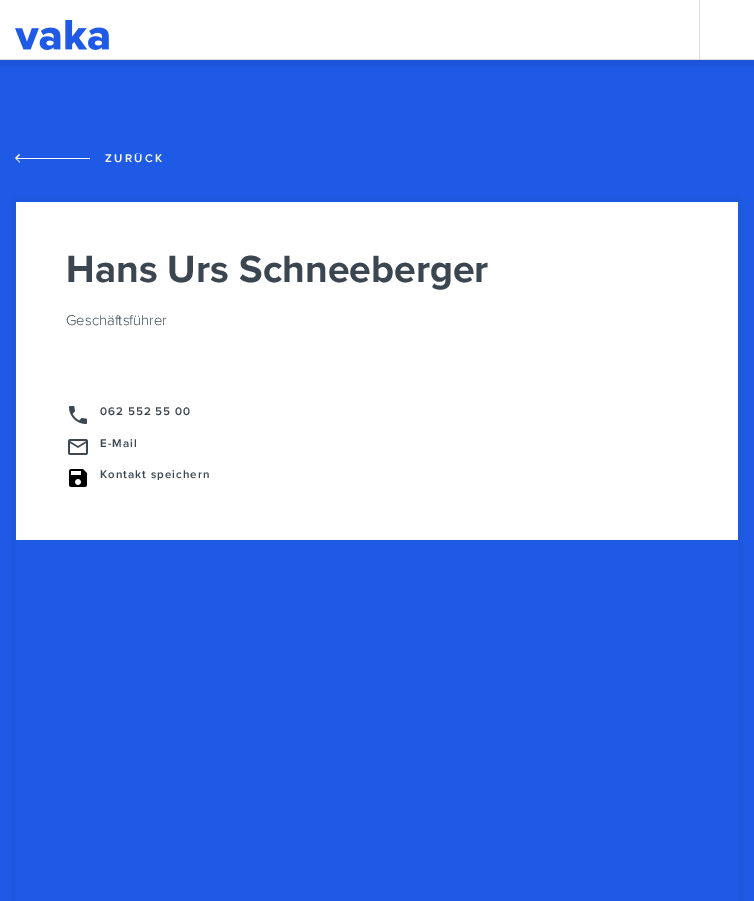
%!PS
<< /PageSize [754 901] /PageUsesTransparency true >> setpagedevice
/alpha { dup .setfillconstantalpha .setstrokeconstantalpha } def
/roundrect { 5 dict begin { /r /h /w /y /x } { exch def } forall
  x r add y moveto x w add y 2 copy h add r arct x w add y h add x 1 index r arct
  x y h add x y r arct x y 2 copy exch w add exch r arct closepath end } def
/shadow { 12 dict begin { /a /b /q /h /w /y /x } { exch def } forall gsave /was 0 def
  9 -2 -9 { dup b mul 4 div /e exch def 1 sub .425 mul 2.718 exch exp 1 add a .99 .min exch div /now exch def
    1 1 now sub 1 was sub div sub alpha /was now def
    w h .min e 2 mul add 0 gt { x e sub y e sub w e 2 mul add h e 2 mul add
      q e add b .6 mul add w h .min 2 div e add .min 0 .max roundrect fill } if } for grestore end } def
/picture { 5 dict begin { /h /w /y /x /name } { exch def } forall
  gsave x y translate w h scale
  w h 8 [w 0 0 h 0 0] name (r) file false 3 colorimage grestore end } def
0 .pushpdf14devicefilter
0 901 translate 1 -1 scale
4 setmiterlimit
1 setgray
0 0 754 901 rectfill
0.118 0.353 0.902 setrgbcolor
0 60 754 841 rectfill
gsave
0 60 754 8 rectclip
0 setgray
0 0 754 60 0 7.5 0.15 shadow
grestore
0.867 setgray
0 59 754 1 rectfill
(img1.rgb) 15 20 94 30 picture
699 0 1 60 rectfill
1 setgray
newpath 16 159 moveto 20 163 lineto 20 162 lineto 17 159 lineto 90 159 lineto 90 158 lineto 17 158 lineto 20 155 lineto 19 154 lineto 15 158 lineto closepath fill
gsave
15 153 149 11 rectclip
/ProximaNova-SemiBold [11.5 0 0 -11.5 0 0] selectfont
105 162 moveto 2.25 0 (ZURÜCK) ashow
grestore
gsave
newpath 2 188 moveto 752 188 lineto 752 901 lineto 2 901 lineto closepath 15 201 moveto 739 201 lineto 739 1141 lineto 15 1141 lineto closepath eoclip newpath
0 setgray
15 201 724 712 0 4 0.1 shadow
grestore
16 202 722 338 rectfill
/ProximaNova-Bold [39.25 0 0 -39.25 0 0] selectfont
0.235 0.275 0.314 setrgbcolor
66 282 moveto (Hans Urs Schneeberger) show
/ProximaNova-Light [14.75 0 0 -14.75 0 0] selectfont
66 325 moveto (Geschäftsführer) show
(img2.rgb) 69 406 18 18 picture
/ProximaNova-SemiBold [11.5 0 0 -11.5 0 0] selectfont
100 415 moveto 1 0 (062 552 55 00) ashow
(img3.rgb) 68 439 20 16 picture
100 447 moveto 1 0 (E-Mail) ashow
(img4.rgb) 69 469 18 18 picture
100 478 moveto 1 0 (Kontakt speichern) ashow
.poppdf14devicefilter showpage
